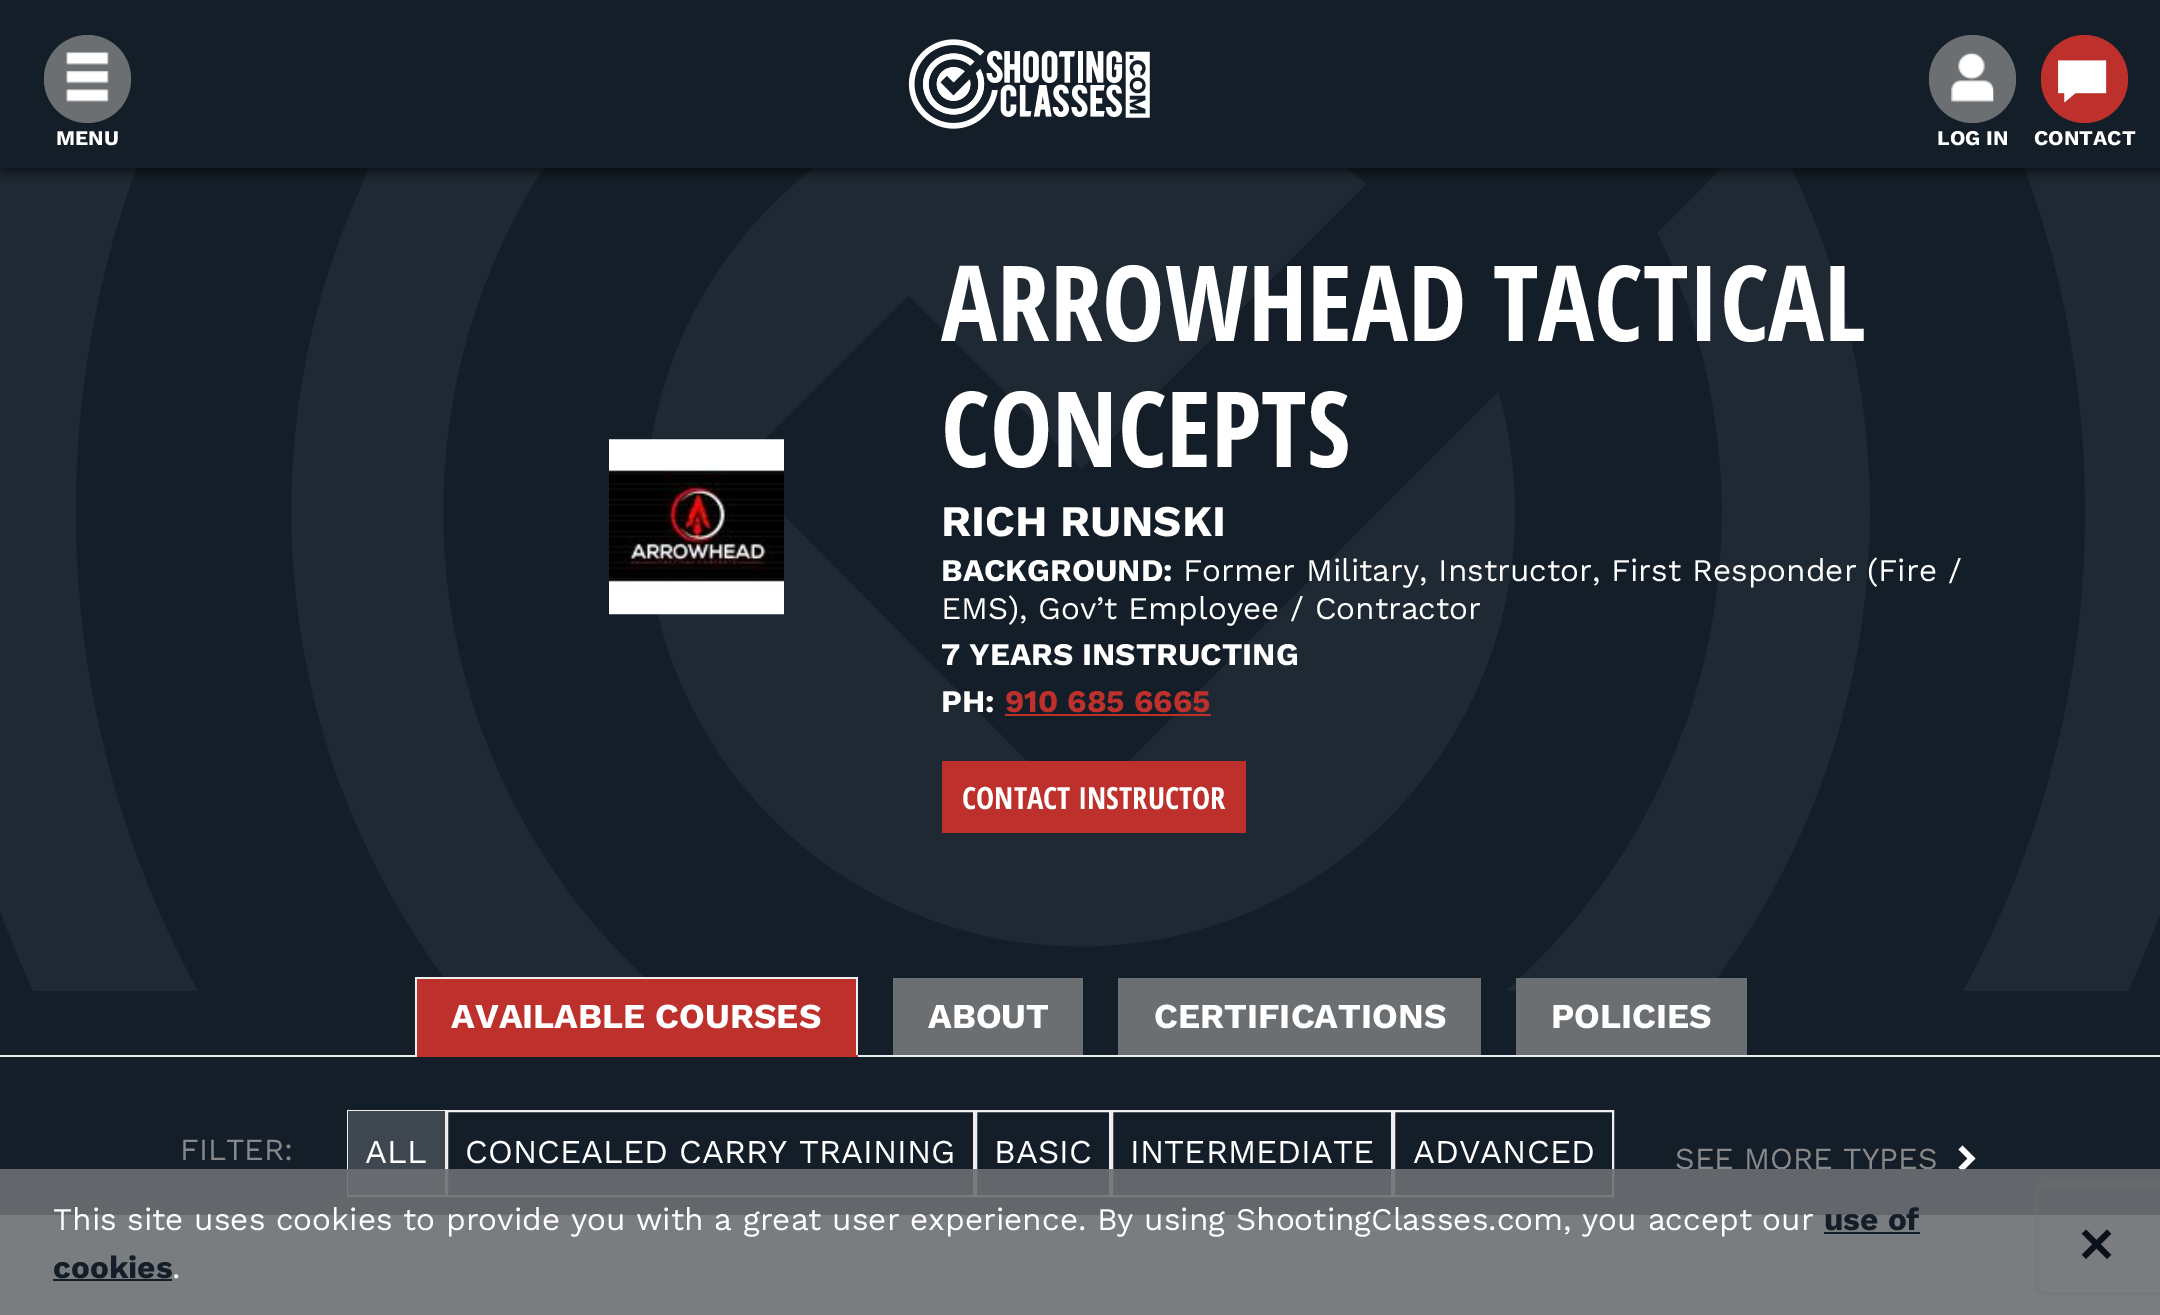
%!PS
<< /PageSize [2160 1315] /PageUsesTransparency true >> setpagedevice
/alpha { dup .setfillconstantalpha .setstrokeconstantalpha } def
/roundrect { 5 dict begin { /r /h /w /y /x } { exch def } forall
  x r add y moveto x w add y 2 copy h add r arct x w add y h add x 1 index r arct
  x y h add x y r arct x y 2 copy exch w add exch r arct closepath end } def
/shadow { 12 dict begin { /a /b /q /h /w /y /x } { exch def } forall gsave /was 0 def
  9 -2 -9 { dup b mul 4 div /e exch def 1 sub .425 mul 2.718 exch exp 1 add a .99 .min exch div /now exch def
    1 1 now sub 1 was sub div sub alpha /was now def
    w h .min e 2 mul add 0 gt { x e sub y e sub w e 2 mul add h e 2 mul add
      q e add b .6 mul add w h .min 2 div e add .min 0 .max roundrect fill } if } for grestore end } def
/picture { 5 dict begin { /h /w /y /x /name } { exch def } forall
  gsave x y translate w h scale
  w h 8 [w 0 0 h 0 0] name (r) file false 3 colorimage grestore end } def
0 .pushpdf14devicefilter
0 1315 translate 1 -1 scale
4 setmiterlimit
0.075 0.118 0.161 setrgbcolor
0 0 2160 1315 rectfill
(img5.rgb) 0 168 2160 823 picture
0 setgray
0 5 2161 168 0 4.5 0.5 shadow
0.075 0.118 0.161 setrgbcolor
0 0 2160 168 rectfill
(img1.rgb) 908 39 242 90 picture
0.424 0.435 0.447 setrgbcolor
44 35 87 88 43.5 roundrect fill
(img2.rgb) 66 52 43 50 picture
/WorkSans-Bold [21 0 0 -21 0 0] selectfont
1 setgray
56 145 moveto (MENU) show
0.424 0.435 0.447 setrgbcolor
1929 35 87 88 43.5 roundrect fill
(img3.rgb) 1951 52 43 50 picture
1 setgray
1937 145 moveto (LOG IN) show
0.741 0.188 0.173 setrgbcolor
2041 35 87 88 43.5 roundrect fill
(img4.rgb) 2058 60 49 43 picture
1 setgray
2034 145 moveto (CONTACT) show
(img6.rgb) 609 439 175 176 picture
/OpenSansCondensed-Bold [105 0 0 -105 0 0] selectfont
941 341 moveto (ARROWHEAD TACTICAL) show
941 467 moveto (CONCEPTS) show
/WorkSans-Bold [43.75 0 0 -43.75 0 0] selectfont
941 536 moveto (RICH RUNSKI) show
/WorkSans-Bold [31.5 0 0 -31.5 0 0] selectfont
941 581 moveto (BACKGROUND:) show
/WorkSans-Regular [31.5 0 0 -31.5 0 0] selectfont
1183 581 moveto (Former Military, Instructor, First Responder \(Fire /) show
941 619 moveto (EMS\), Gov’t Employee / Contractor) show
/WorkSans-Bold [31.5 0 0 -31.5 0 0] selectfont
941 665 moveto (7 YEARS INSTRUCTING) show
941 712 moveto (PH:) show
0.741 0.188 0.173 setrgbcolor
1005 712 moveto (910 685 6665) show
1005 714 206 2 rectfill
942 761 304 72 rectfill
/OpenSansCondensed-Bold [30.6 0 0 -30.6 0 0] selectfont
1 setgray
962 809 moveto (CONTACT INSTRUCTOR) show
0.933 setgray
0 1055 2160 2 rectfill
0.741 0.188 0.173 setrgbcolor
417 979 439 76 rectfill
/WorkSans-Bold [35 0 0 -35 0 0] selectfont
1 setgray
451 1028 moveto (AVAILABLE COURSES) show
0.933 setgray
415 977 443 2 rectfill
856 977 2 80 rectfill
0.741 0.188 0.173 setrgbcolor
415 1055 443 2 rectfill
0.933 setgray
415 977 2 80 rectfill
0.424 0.435 0.447 setrgbcolor
893 978 190 77 rectfill
1 setgray
928 1028 moveto (ABOUT) show
0.424 0.435 0.447 setrgbcolor
1118 978 363 77 rectfill
1 setgray
1154 1028 moveto (CERTIFICATIONS) show
0.424 0.435 0.447 setrgbcolor
1516 978 231 77 rectfill
1 setgray
1551 1028 moveto (POLICIES) show
/WorkSans-Regular [30.6 0 0 -30.6 0 0] selectfont
0.533 setgray
180 1160 moveto (FILTER:) show
0.933 setgray
2 setlinewidth
348 1111 97 85 rectstroke
0.243 0.278 0.314 setrgbcolor
348 1111 97 84 rectfill
/WorkSans-Regular [33.25 0 0 -33.25 0 0] selectfont
1 setgray
365 1163 moveto (ALL) show
0.933 setgray
447 1111 527 85 rectstroke
1 setgray
465 1163 moveto (CONCEALED CARRY TRAINING) show
0.933 setgray
976 1111 134 85 rectstroke
1 setgray
994 1163 moveto (BASIC) show
0.933 setgray
1112 1111 280 85 rectstroke
1 setgray
1130 1163 moveto (INTERMEDIATE) show
0.933 setgray
1394 1111 219 85 rectstroke
1 setgray
1413 1163 moveto (ADVANCED) show
/WorkSans-Regular [30.6 0 0 -30.6 0 0] selectfont
0.533 setgray
1675 1169 moveto (SEE MORE TYPES) show
1 setgray
newpath 1962.5 1171.5 moveto 1958.5 1167.5 lineto 1967.5 1158.5 lineto 1958.5 1149.5 lineto 1962.5 1145.5 lineto 1975.5 1158.5 lineto closepath fill
0 1215 2160 100 rectfill
gsave
newpath 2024 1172 moveto 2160 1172 lineto 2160 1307 lineto 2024 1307 lineto closepath 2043 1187 moveto 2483 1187 lineto 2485 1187 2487 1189 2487 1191 curveto 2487 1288 lineto 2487 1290 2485 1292 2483 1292 curveto 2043 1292 lineto 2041 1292 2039 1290 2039 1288 curveto 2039 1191 lineto 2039 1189 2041 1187 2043 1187 curveto closepath eoclip newpath
0.502 setgray
2039 1187 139 105 4 4.5 1 shadow
grestore
0.9 alpha
0.424 0.435 0.447 setrgbcolor
0 1169 2160 146 rectfill
/WorkSans-Regular [31.5 0 0 -31.5 0 0] selectfont
1 alpha
1 setgray
53 1230 moveto (This site uses cookies to provide you with a great user experience. By using ShootingClasses.com, you accept our) show
/WorkSans-Bold [31.5 0 0 -31.5 0 0] selectfont
0.075 0.118 0.161 setrgbcolor
1824 1230 moveto (use of) show
1824 1232 96 2 rectfill
53 1278 moveto (cookies) show
53 1279 119 2 rectfill
/WorkSans-Regular [31.5 0 0 -31.5 0 0] selectfont
1 setgray
172 1278 moveto (.) show
(img7.rgb) 2081 1229 31 30 picture
.poppdf14devicefilter showpage
